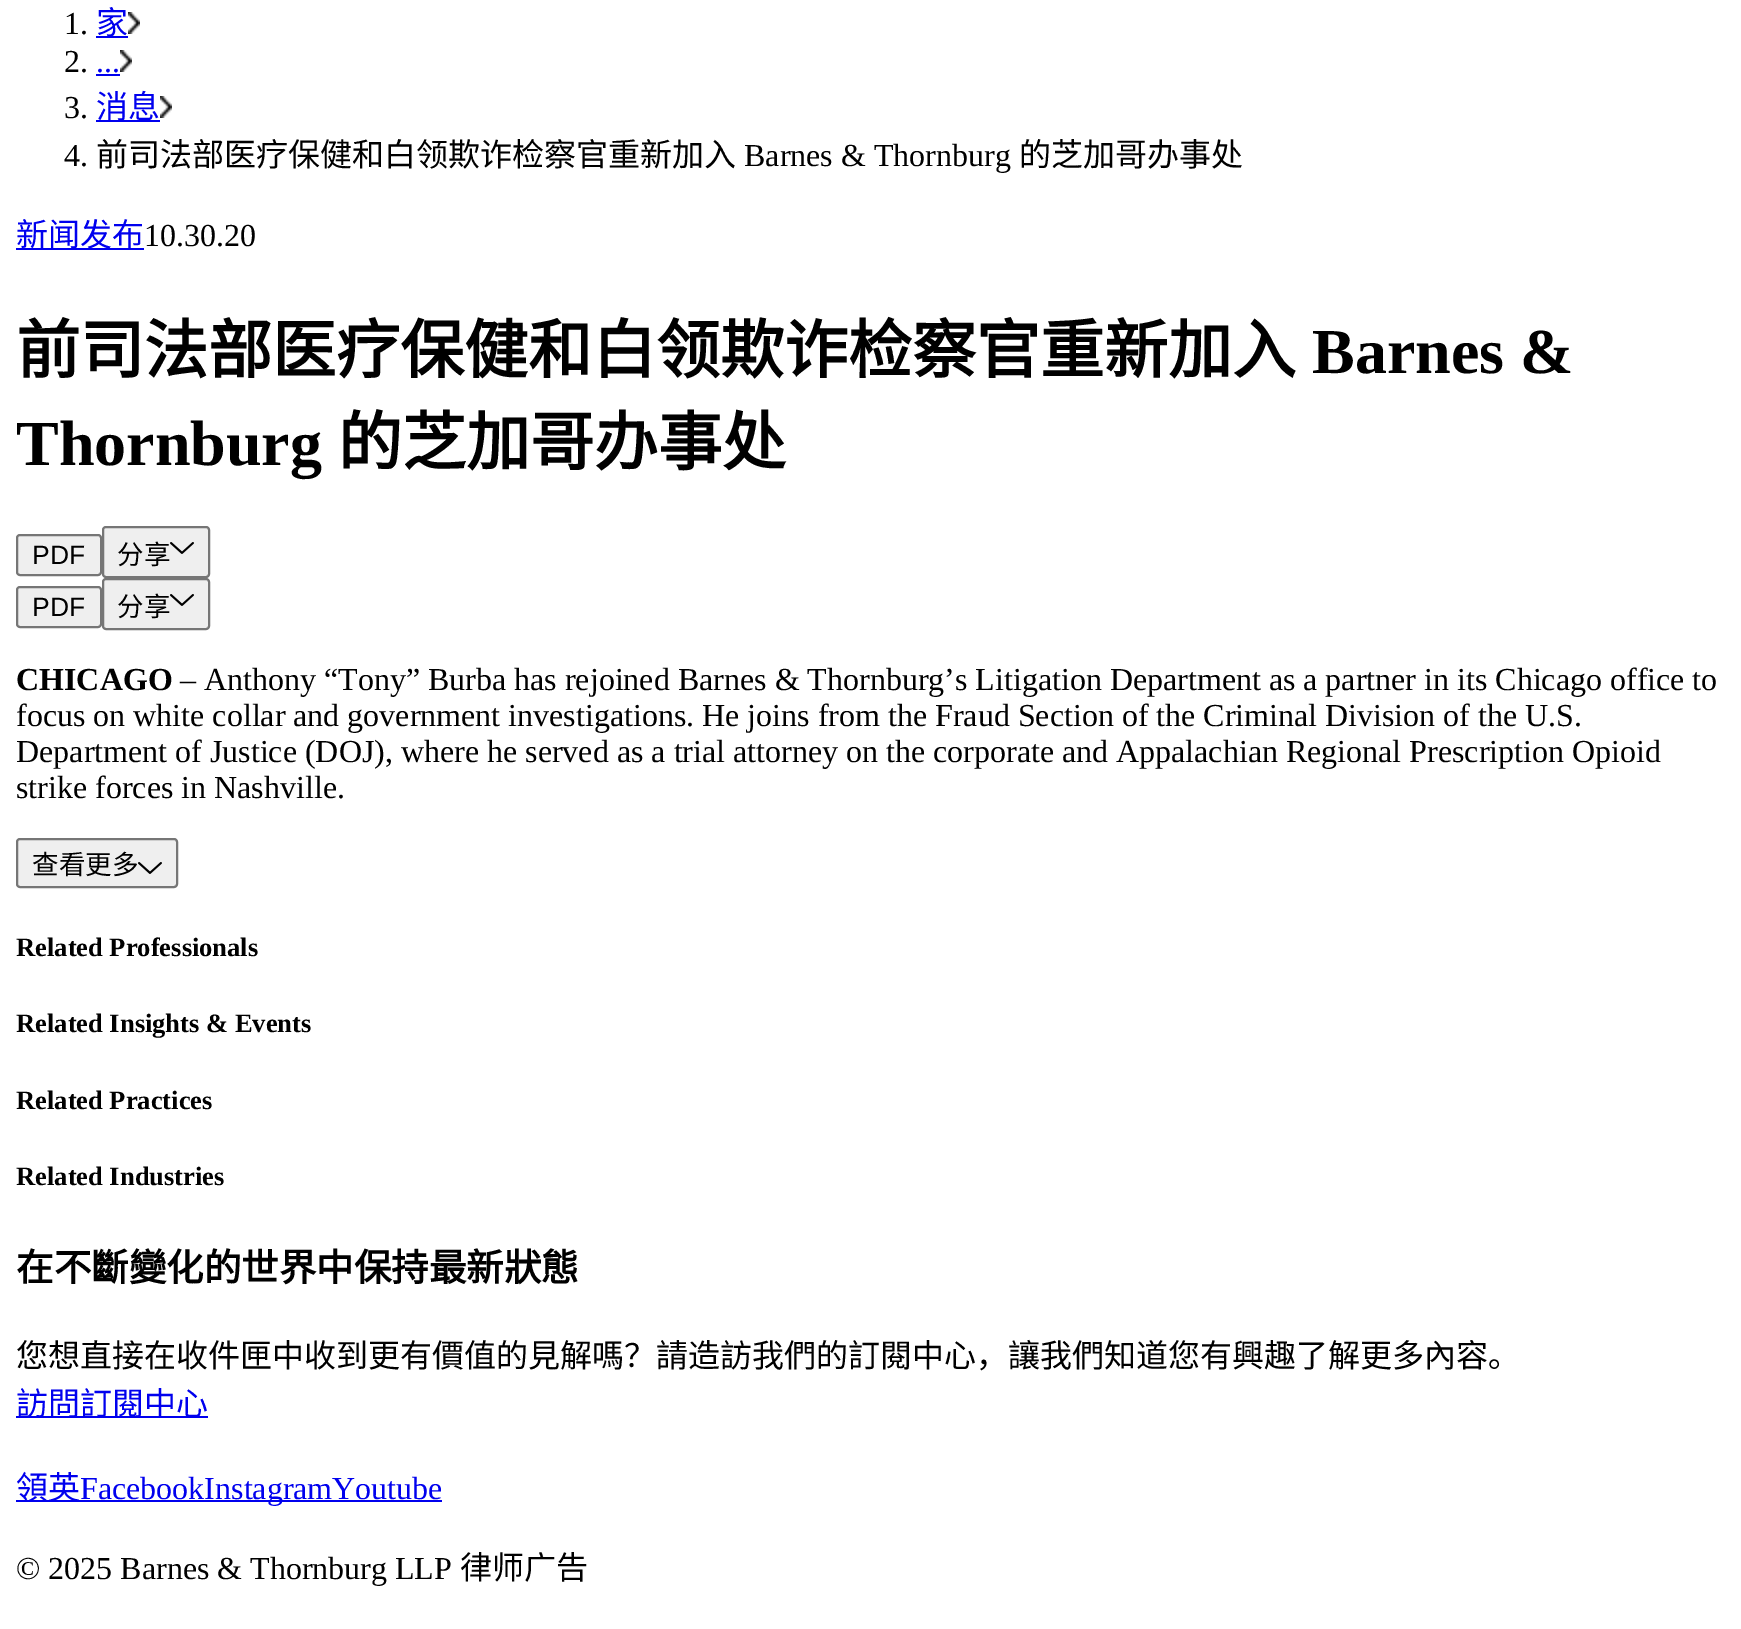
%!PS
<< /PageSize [1741 1629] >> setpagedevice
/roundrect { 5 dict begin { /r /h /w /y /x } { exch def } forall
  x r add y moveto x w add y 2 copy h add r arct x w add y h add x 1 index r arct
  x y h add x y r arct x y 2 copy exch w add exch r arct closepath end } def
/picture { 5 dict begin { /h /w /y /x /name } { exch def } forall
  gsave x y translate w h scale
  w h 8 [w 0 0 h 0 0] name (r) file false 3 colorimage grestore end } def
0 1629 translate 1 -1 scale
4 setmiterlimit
1 setgray
0 0 1741 1629 rectfill
/LiberationSerif-Regular [32 0 0 -32 0 0] selectfont
0 setgray
64 34 moveto (1.) show
0 0 0.933 setrgbcolor
96 36 32 2 rectfill
/NotoSansCJKSC-Regular [32 0 0 -32 0 0] selectfont
96 34 moveto (家) show
(img1.rgb) 128 12 12 22 picture
/LiberationSerif-Regular [32 0 0 -32 0 0] selectfont
0 setgray
64 72 moveto (2.) show
0 0 0.933 setrgbcolor
96 72 moveto (...) show
96 74 24 2 rectfill
(img1.rgb) 120 50 12 22 picture
0 setgray
64 118 moveto (3.) show
0 0 0.933 setrgbcolor
96 120 64 2 rectfill
/NotoSansCJKSC-Regular [32 0 0 -32 0 0] selectfont
96 118 moveto (消息) show
(img1.rgb) 160 96 12 22 picture
/LiberationSerif-Regular [32 0 0 -32 0 0] selectfont
0 setgray
64 166 moveto (4.) show
/NotoSansCJKSC-Regular [32 0 0 -32 0 0] selectfont
96 166 moveto (前司法部医疗保健和白领欺诈检察官重新加入) show
/LiberationSerif-Regular [32 0 0 -32 0 0] selectfont
744 166 moveto (Barnes & Thornburg) show
/NotoSansCJKSC-Regular [32 0 0 -32 0 0] selectfont
1019 166 moveto (的芝加哥办事处) show
0 0 0.933 setrgbcolor
16 248 128 2 rectfill
16 246 moveto (新闻发布) show
/LiberationSerif-Regular [32 0 0 -32 0 0] selectfont
0 setgray
144 246 moveto (10.30.20) show
/NotoSansCJKSC-Bold [64 0 0 -64 0 0] selectfont
16 373 moveto (前司法部医疗保健和白领欺诈检察官重新加入) show
/LiberationSerif-Bold [64 0 0 -64 0 0] selectfont
1312 373 moveto (Barnes &) show
16 465 moveto (Thornburg) show
/NotoSansCJKSC-Bold [64 0 0 -64 0 0] selectfont
338 465 moveto (的芝加哥办事处) show
0.937 setgray
17 535 84 40 3 roundrect gsave fill grestore
0.463 setgray
2 setlinewidth
stroke
/LiberationSans-Regular [26.5 0 0 -26.5 0 0] selectfont
0 setgray
32 564 moveto (PDF) show
0.937 setgray
103 527 106 50 3 roundrect gsave fill grestore
0.463 setgray
stroke
/NotoSansCJKSC-Regular [26.5 0 0 -26.5 0 0] selectfont
0 setgray
117 564 moveto (分享) show
(img2.rgb) 170 542 24 12 picture
0.937 setgray
17 587 84 40 3 roundrect gsave fill grestore
0.463 setgray
stroke
/LiberationSans-Regular [26.5 0 0 -26.5 0 0] selectfont
0 setgray
32 616 moveto (PDF) show
0.937 setgray
103 579 106 50 3 roundrect gsave fill grestore
0.463 setgray
stroke
/NotoSansCJKSC-Regular [26.5 0 0 -26.5 0 0] selectfont
0 setgray
117 616 moveto (分享) show
(img2.rgb) 170 594 24 12 picture
/LiberationSerif-Bold [32 0 0 -32 0 0] selectfont
16 690 moveto (CHICAGO) show
/LiberationSerif-Regular [32 0 0 -32 0 0] selectfont
180 690 moveto (– Anthony “Tony” Burba has rejoined Barnes & Thornburg’s Litigation Department as a partner in its Chicago office to) show
16 726 moveto (focus on white collar and government investigations. He joins from the Fraud Section of the Criminal Division of the U.S.) show
16 762 moveto (Department of Justice \(DOJ\), where he served as a trial attorney on the corporate and Appalachian Regional Prescription Opioid) show
16 798 moveto (strike forces in Nashville.) show
0.937 setgray
17 839 160 48 3 roundrect gsave fill grestore
0.463 setgray
stroke
/NotoSansCJKSC-Regular [26.5 0 0 -26.5 0 0] selectfont
0 setgray
32 874 moveto (查看更多) show
(img3.rgb) 138 862 24 12 picture
/LiberationSerif-Bold [26.5 0 0 -26.5 0 0] selectfont
16 956 moveto (Related Professionals) show
16 1032 moveto (Related Insights & Events) show
16 1109 moveto (Related Practices) show
16 1185 moveto (Related Industries) show
/NotoSansCJKSC-Bold [37.5 0 0 -37.5 0 0] selectfont
16 1281 moveto (在不斷變化的世界中保持最新狀態) show
/NotoSansCJKSC-Regular [32 0 0 -32 0 0] selectfont
16 1367 moveto (您想直接在收件匣中收到更有價值的見解嗎？請造訪我們的訂閱中心，讓我們知道您有興趣了解更多內容。) show
0 0 0.933 setrgbcolor
16 1416 192 2 rectfill
16 1415 moveto (訪問訂閱中心) show
16 1500 426 2 rectfill
16 1499 moveto (領英) show
/LiberationSerif-Regular [32 0 0 -32 0 0] selectfont
80 1499 moveto (FacebookInstagramYoutube) show
0 setgray
16 1579 moveto (© 2025 Barnes & Thornburg LLP) show
/NotoSansCJKSC-Regular [32 0 0 -32 0 0] selectfont
460 1579 moveto (律师广告) show
showpage
